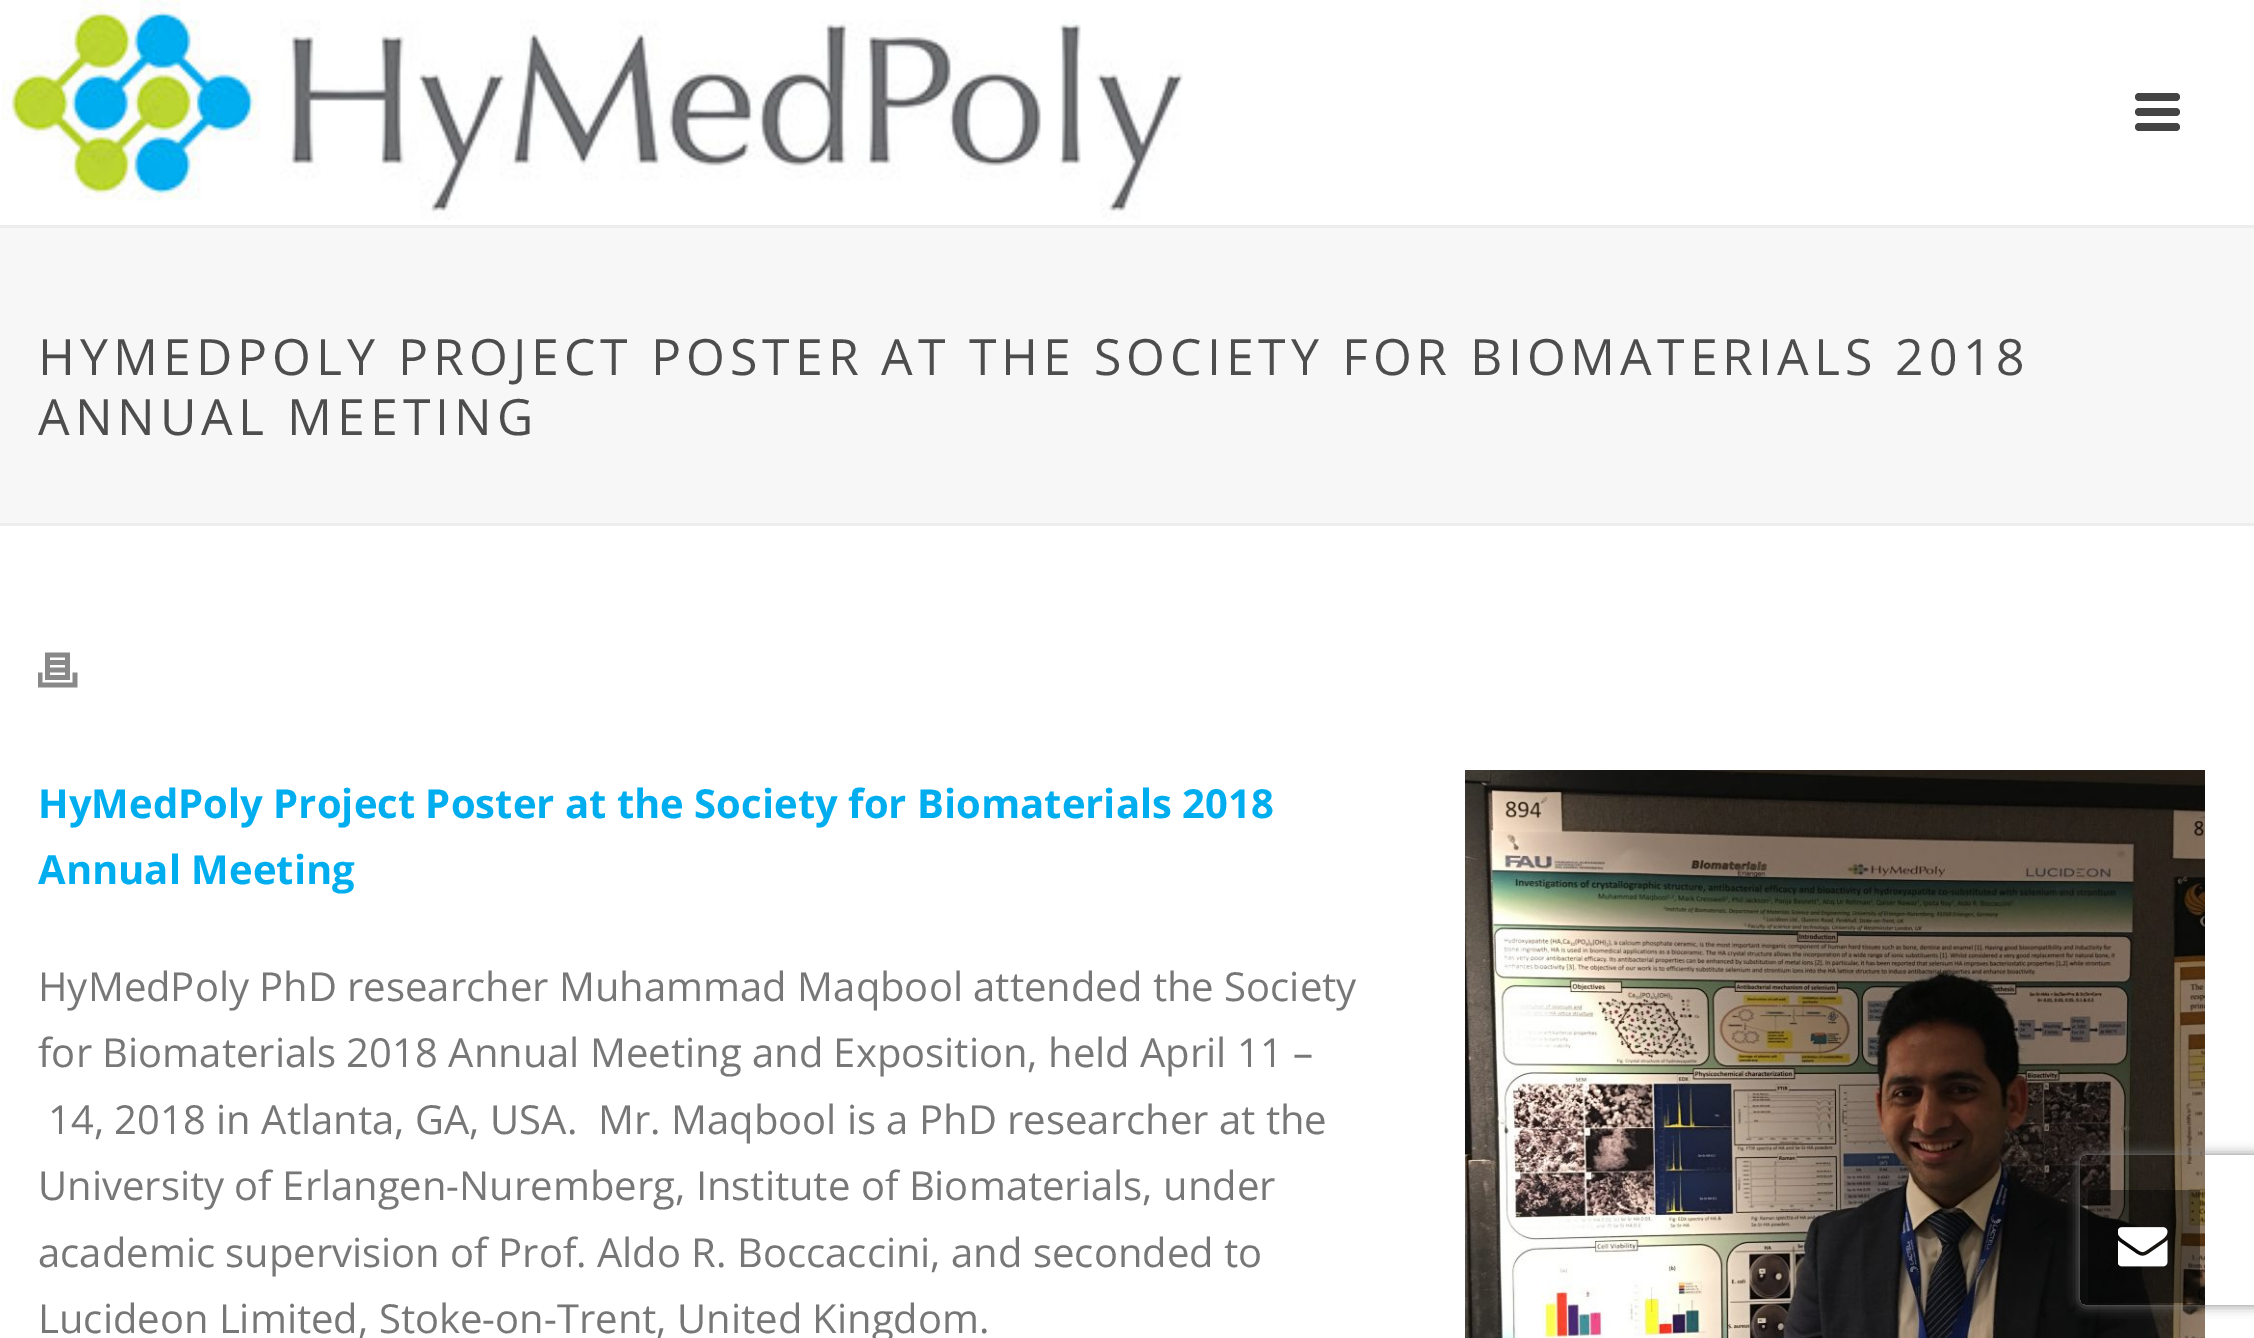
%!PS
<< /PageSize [2254 1338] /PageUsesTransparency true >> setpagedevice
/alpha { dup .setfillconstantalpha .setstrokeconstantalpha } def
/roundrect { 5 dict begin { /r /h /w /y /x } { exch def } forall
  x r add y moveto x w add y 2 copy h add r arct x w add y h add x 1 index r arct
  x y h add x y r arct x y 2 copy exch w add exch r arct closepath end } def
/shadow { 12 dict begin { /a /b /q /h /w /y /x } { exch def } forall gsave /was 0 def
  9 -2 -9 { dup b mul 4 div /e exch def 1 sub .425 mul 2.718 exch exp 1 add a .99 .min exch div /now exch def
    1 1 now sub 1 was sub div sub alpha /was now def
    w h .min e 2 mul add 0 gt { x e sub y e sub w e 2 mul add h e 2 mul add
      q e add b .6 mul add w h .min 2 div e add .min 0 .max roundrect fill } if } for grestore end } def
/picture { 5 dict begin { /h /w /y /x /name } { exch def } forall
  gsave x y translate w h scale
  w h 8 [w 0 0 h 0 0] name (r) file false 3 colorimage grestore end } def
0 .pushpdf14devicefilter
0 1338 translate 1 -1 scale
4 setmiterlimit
1 setgray
0 0 2254 1338 rectfill
0.969 setgray
0 228 2254 295 rectfill
0.929 setgray
0 523 2254 3 rectfill
0 225 2254 3 rectfill
(img1.rgb) 2 0 1181 220 picture
0.267 setgray
2135 93 45 8 4 roundrect fill
2135 108 45 8 4 roundrect fill
2135 123 45 8 4 roundrect fill
/OpenSans-Regular [50 0 0 -50 0 0] selectfont
0.302 setgray
38 375 moveto 5 0 (HYMEDPOLY PROJECT POSTER AT THE SOCIETY FOR BIOMATERIALS 2018) ashow
38 435 moveto 5 0 (ANNUAL MEETING) ashow
(img2.rgb) 38 652 40 36 picture
/OpenSans-Bold [40 0 0 -40 0 0] selectfont
0 0.682 0.937 setrgbcolor
38 818 moveto (HyMedPoly Project Poster at the Society for Biomaterials 2018) show
38 884 moveto (Annual Meeting) show
(img3.rgb) 1465 770 740 568 picture
/OpenSans-Regular [40 0 0 -40 0 0] selectfont
0.467 setgray
38 1001 moveto (HyMedPoly PhD researcher Muhammad Maqbool attended the Society) show
38 1067 moveto (for Biomaterials 2018 Annual Meeting and Exposition, held April 11 –) show
48 1134 moveto (14, 2018 in Atlanta, GA, USA.  Mr. Maqbool is a PhD researcher at the) show
38 1200 moveto (University of Erlangen-Nuremberg, Institute of Biomaterials, under) show
38 1267 moveto (academic supervision of Prof. Aldo R. Boccaccini, and seconded to) show
38 1333 moveto (Lucideon Limited, Stoke-on-Trent, United Kingdom.) show
gsave
newpath 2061 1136 moveto 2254 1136 lineto 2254 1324 lineto 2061 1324 lineto closepath 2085 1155 moveto 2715 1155 lineto 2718 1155 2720 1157 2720 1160 curveto 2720 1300 lineto 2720 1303 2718 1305 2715 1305 curveto 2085 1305 lineto 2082 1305 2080 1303 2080 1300 curveto 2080 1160 lineto 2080 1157 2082 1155 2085 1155 curveto closepath eoclip newpath
0.502 setgray
2080 1155 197 150 5 6 1 shadow
grestore
0.4 alpha
0 setgray
2088 1190 112 113 rectfill
1 alpha
(img4.rgb) 2118 1227 50 40 picture
.poppdf14devicefilter showpage
